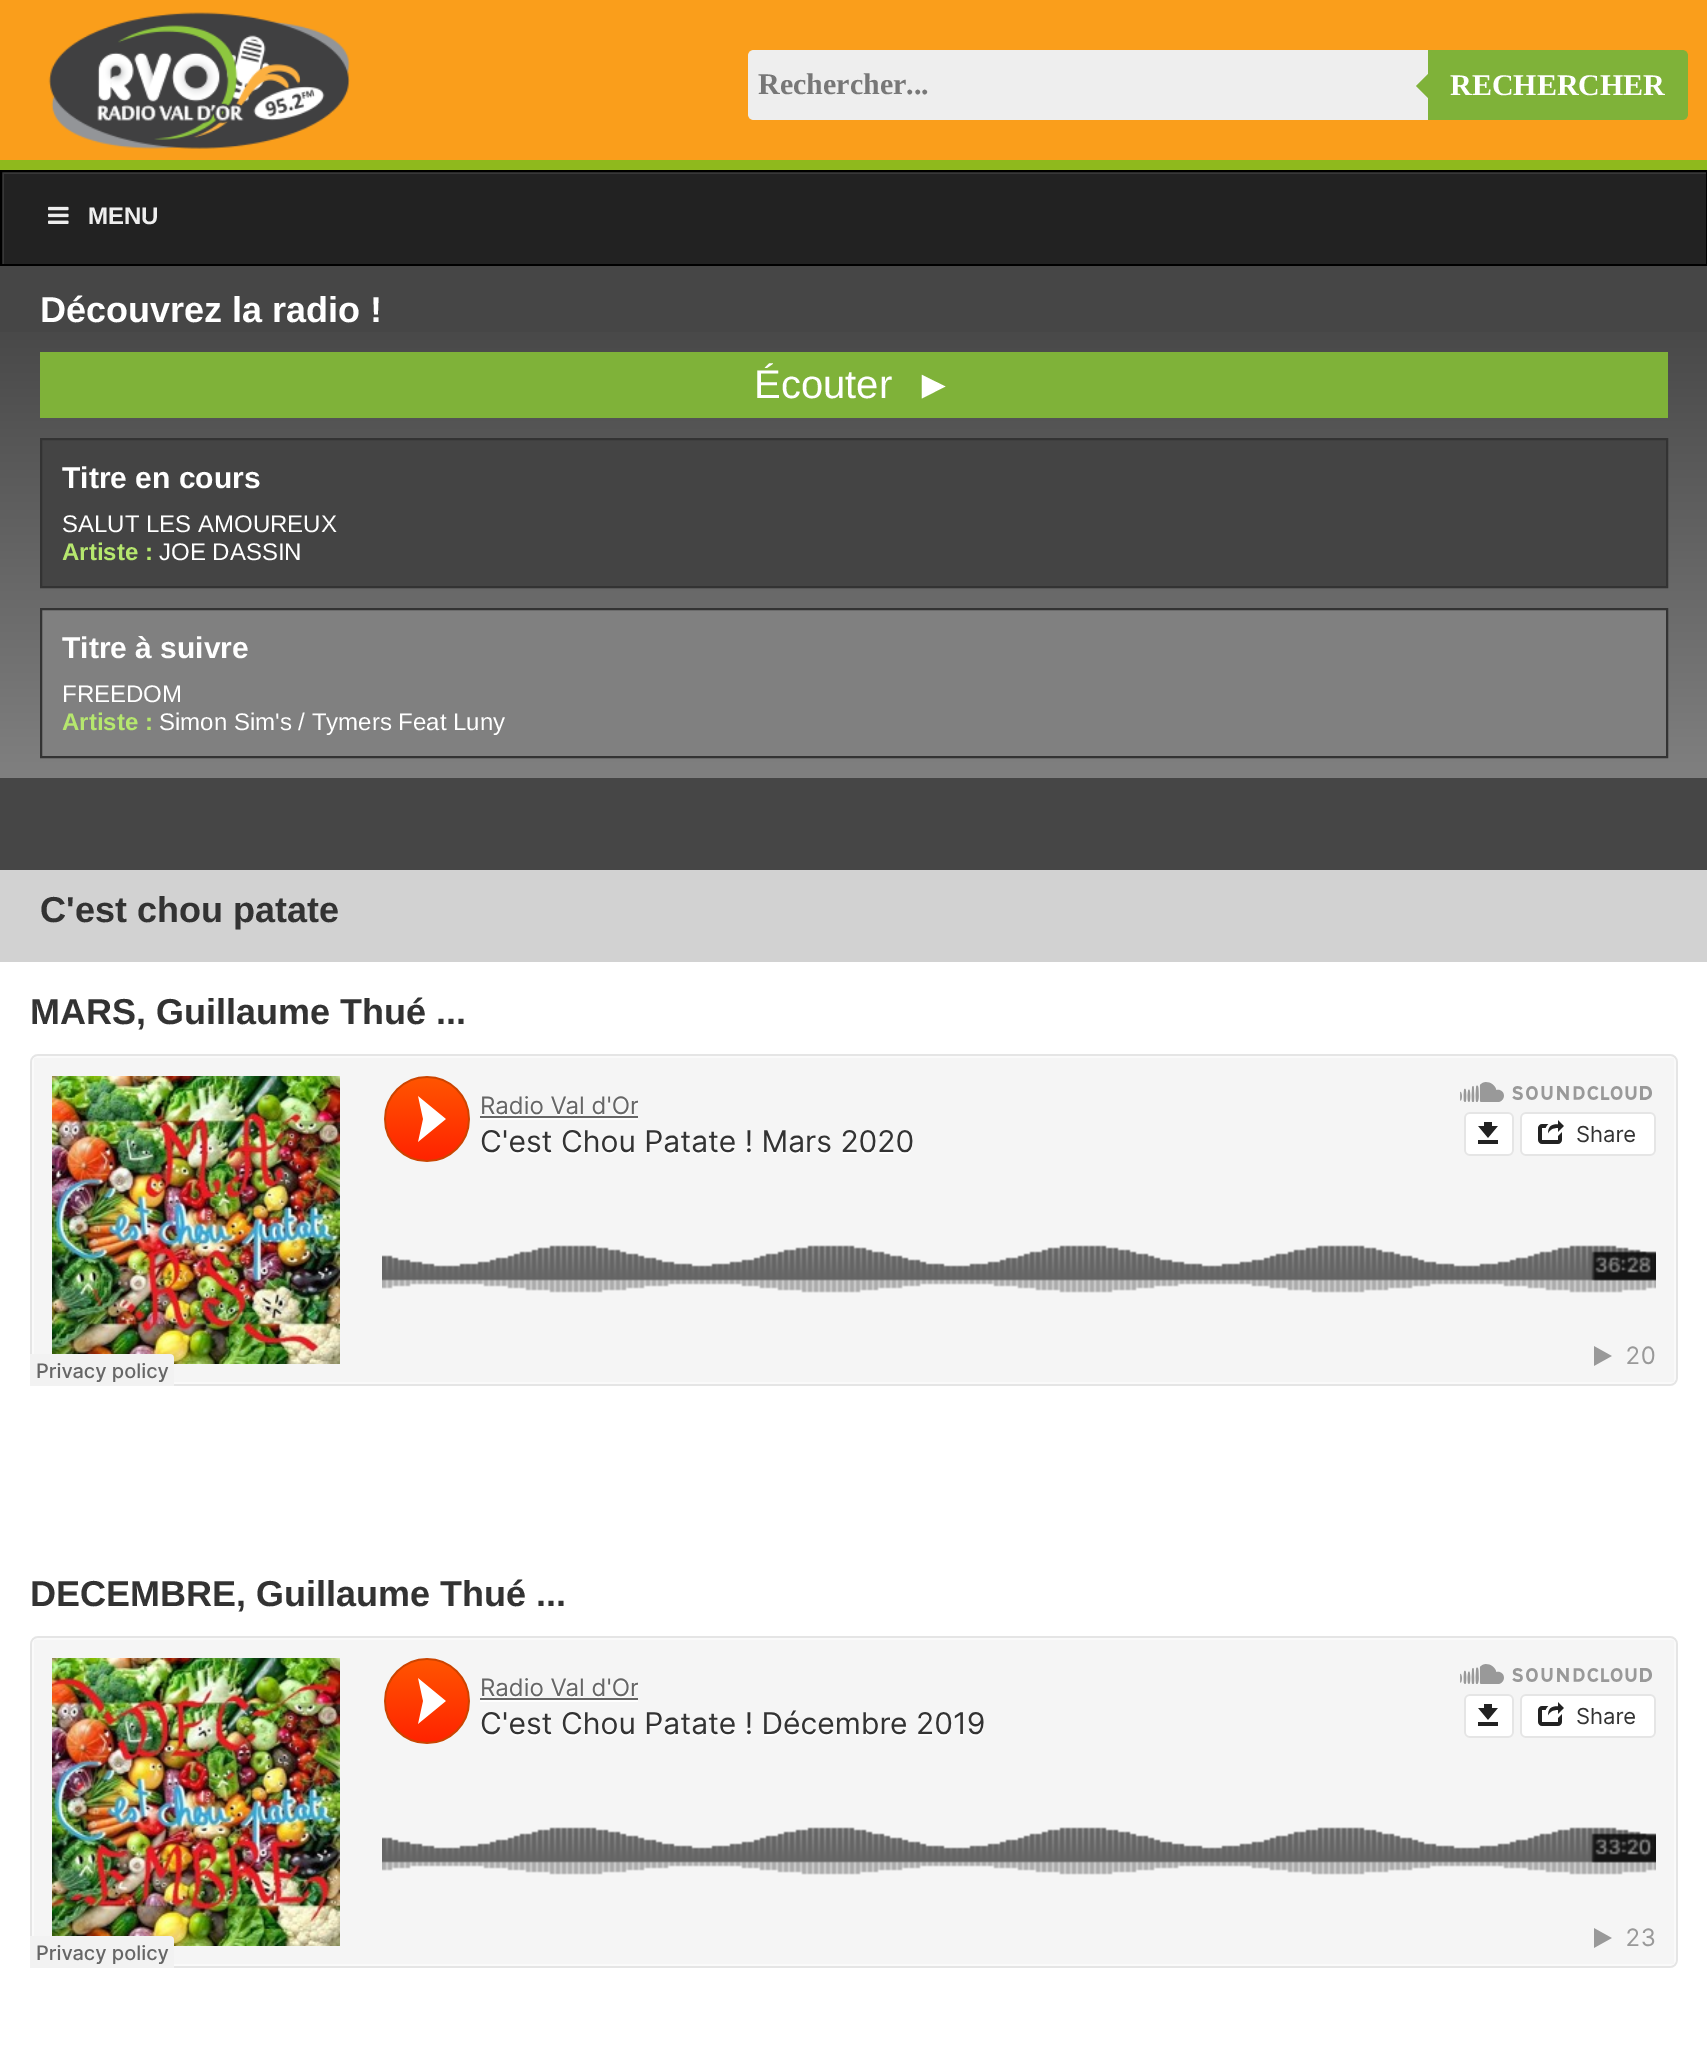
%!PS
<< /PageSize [1707 2067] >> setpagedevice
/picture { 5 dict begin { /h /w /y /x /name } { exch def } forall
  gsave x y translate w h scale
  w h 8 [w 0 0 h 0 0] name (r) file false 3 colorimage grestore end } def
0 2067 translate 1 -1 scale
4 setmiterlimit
1 setgray
0 0 1707 2067 rectfill
0.98 0.62 0.106 setrgbcolor
0 0 1707 160 rectfill
0.561 0.725 0.114 setrgbcolor
0 160 1707 10 rectfill
0.933 setgray
newpath 754 50 moveto 1428 50 lineto 1428 120 lineto 754 120 lineto 750.5 120 748 117.5 748 114 curveto 748 56 lineto 748 52.5 750.5 50 754 50 curveto closepath fill
/LiberationSerif-Bold [30 0 0 -30 0 0] selectfont
0.467 setgray
758 94 moveto (Rechercher...) show
0.498 0.698 0.224 setrgbcolor
newpath 1428 50 moveto 1682 50 lineto 1685.5 50 1688 52.5 1688 56 curveto 1688 114 lineto 1688 117.5 1685.5 120 1682 120 curveto 1428 120 lineto closepath fill
newpath 1432 70 moveto 1432 102 lineto 1416 86 lineto closepath fill
1 setgray
1450 95 moveto (RECHERCHER) show
(img1.rgb) 48 12 302 137 picture
0.133 setgray
4 174 1702 90 rectfill
gsave
2 172 1704 92 rectclip
0.22 setgray
newpath -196 -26 moveto 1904 -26 lineto 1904 462 lineto -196 462 lineto closepath 4 174 moveto 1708 174 lineto 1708 266 lineto 4 266 lineto closepath eofill
grestore
0 setgray
2 setlinewidth
1 171 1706 94 rectstroke
(img2.rgb) 48 206 21 18 picture
/LiberationSans-Bold [24 0 0 -24 0 0] selectfont
0.933 setgray
88 224 moveto (MENU) show
0.275 setgray
0 266 1707 604 rectfill
gsave newpath 0 332 moveto 1707 332 lineto 1707 778 lineto 0 778 lineto closepath clip newpath
<< /ShadingType 2 /ColorSpace /DeviceRGB /Coords [854 270 854 778] /Extend [true true] /Function << /FunctionType 3 /Domain [0 1] /Functions [<< /FunctionType 2 /Domain [0 1] /C0 [0.267 0.267 0.267] /C1 [0.267 0.267 0.267] /N 1 >> << /FunctionType 2 /Domain [0 1] /C0 [0.267 0.267 0.267] /C1 [0.502 0.502 0.502] /N 1 >>] /Bounds [0.05] /Encode [0 1 0 1] >> >> shfill grestore
/LiberationSans-Bold [36 0 0 -36 0 0] selectfont
1 setgray
40 322 moveto (Découvrez la radio !) show
0.498 0.698 0.224 setrgbcolor
40 352 1628 66 rectfill
/LiberationSans-Regular [40 0 0 -40 0 0] selectfont
1 setgray
754 398 moveto (Écouter  ►) show
0.267 setgray
newpath 41 439 moveto 1667 439 lineto 1667 587 lineto 41 587 lineto closepath gsave fill grestore
0.2 setgray
stroke
/LiberationSans-Bold [30 0 0 -30 0 0] selectfont
1 setgray
62 488 moveto (Titre en cours) show
/LiberationSans-Regular [24 0 0 -24 0 0] selectfont
62 532 moveto (SALUT LES AMOUREUX) show
/LiberationSans-Bold [24 0 0 -24 0 0] selectfont
0.714 0.906 0.431 setrgbcolor
62 560 moveto (Artiste :) show
/LiberationSans-Regular [24 0 0 -24 0 0] selectfont
1 setgray
159 560 moveto (JOE DASSIN) show
0.502 setgray
newpath 41 609 moveto 1667 609 lineto 1667 757 lineto 41 757 lineto closepath gsave fill grestore
0.2 setgray
stroke
/LiberationSans-Bold [30 0 0 -30 0 0] selectfont
1 setgray
62 658 moveto (Titre à suivre) show
/LiberationSans-Regular [24 0 0 -24 0 0] selectfont
62 702 moveto (FREEDOM) show
/LiberationSans-Bold [24 0 0 -24 0 0] selectfont
0.714 0.906 0.431 setrgbcolor
62 730 moveto (Artiste :) show
/LiberationSans-Regular [24 0 0 -24 0 0] selectfont
1 setgray
159 730 moveto (Simon Sim's / Tymers Feat Luny) show
0.824 setgray
0 870 1707 92 rectfill
/LiberationSans-Bold [36 0 0 -36 0 0] selectfont
0.2 setgray
40 922 moveto (C'est chou patate) show
30 1024 moveto (MARS, Guillaume Thué ...) show
(img3.rgb) 30 1054 1648 332 picture
30 1606 moveto (DECEMBRE, Guillaume Thué ...) show
(img4.rgb) 30 1636 1648 332 picture
showpage
